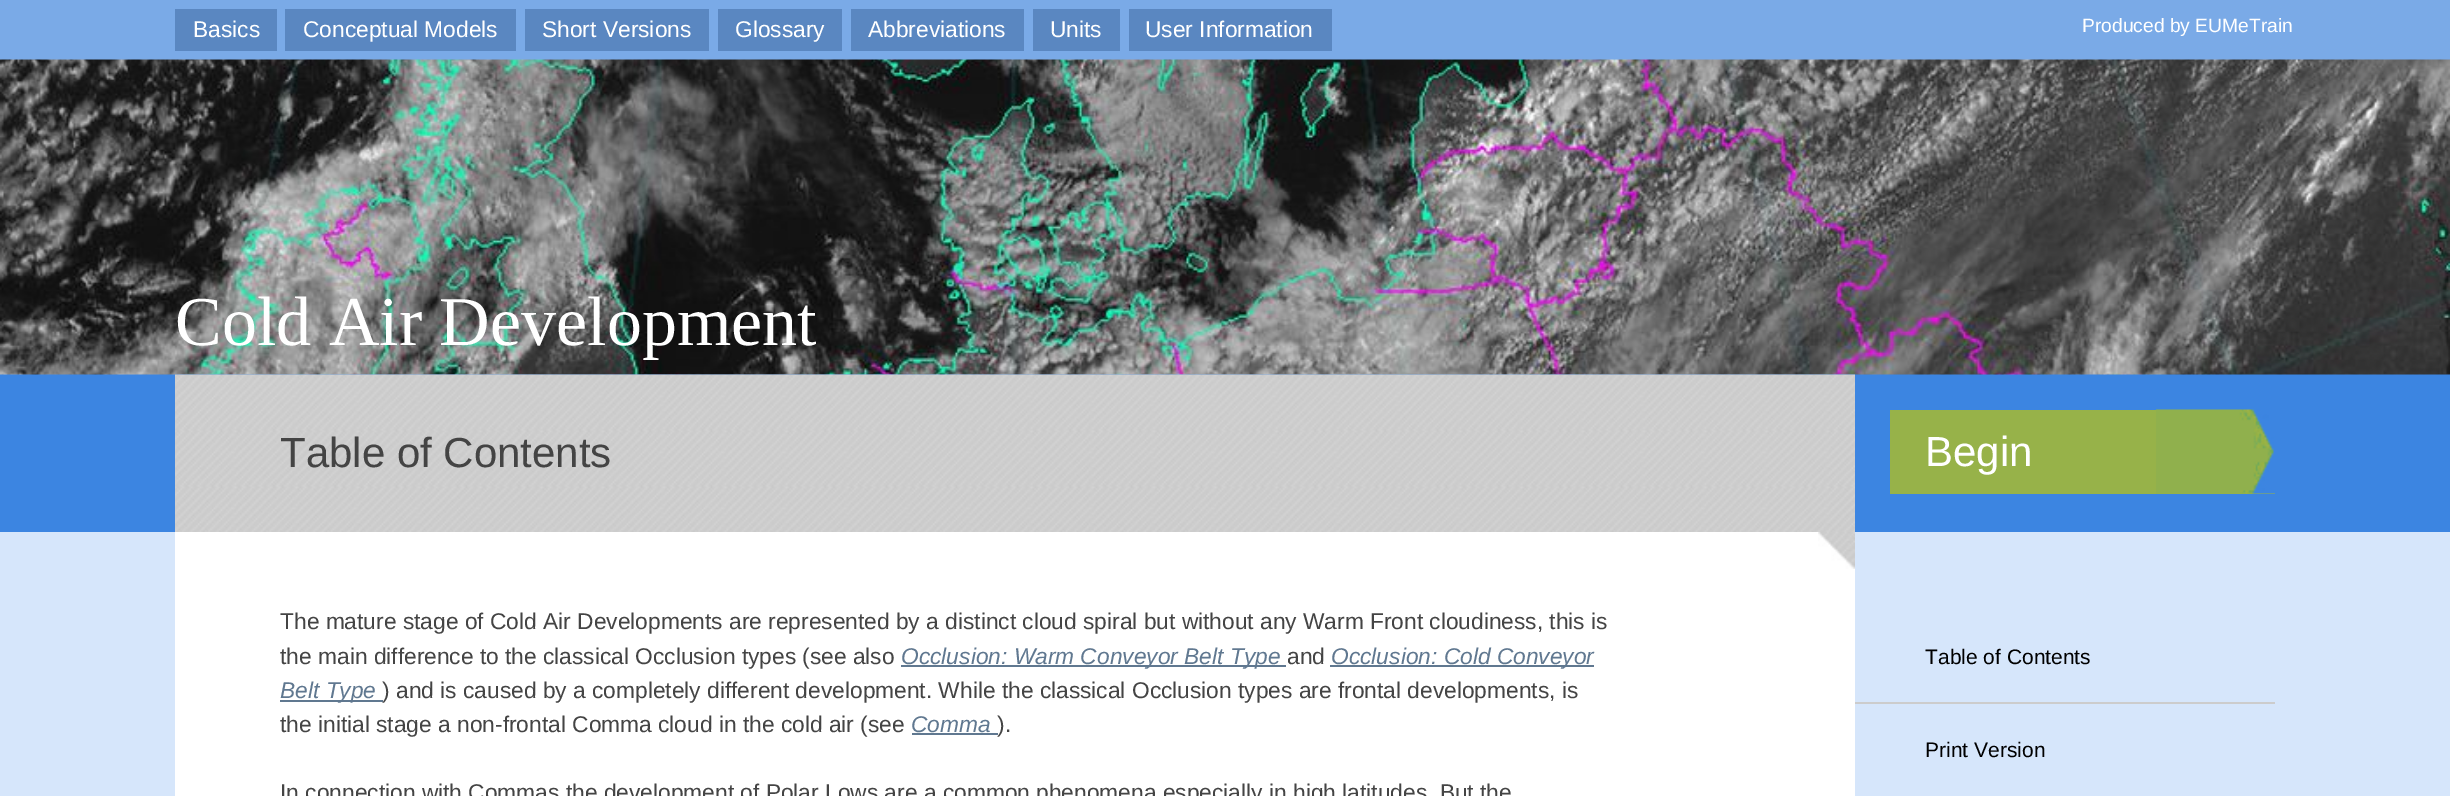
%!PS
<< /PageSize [2450 796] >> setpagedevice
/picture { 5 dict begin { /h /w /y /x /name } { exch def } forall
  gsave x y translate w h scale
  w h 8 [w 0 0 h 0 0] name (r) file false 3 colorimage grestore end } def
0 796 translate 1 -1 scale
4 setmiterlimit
0.839 0.902 0.984 setrgbcolor
0 0 2450 796 rectfill
0.478 0.667 0.906 setrgbcolor
0 0 2450 60 rectfill
0.353 0.529 0.757 setrgbcolor
175 9 102 42 rectfill
/LiberationSans-Regular [22.75 0 0 -22.75 0 0] selectfont
1 setgray
193 37 moveto (Basics) show
0.353 0.529 0.757 setrgbcolor
285 9 231 42 rectfill
1 setgray
303 37 moveto (Conceptual Models) show
0.353 0.529 0.757 setrgbcolor
525 9 184 42 rectfill
1 setgray
542 37 moveto (Short Versions) show
0.353 0.529 0.757 setrgbcolor
718 9 124 42 rectfill
1 setgray
735 37 moveto (Glossary) show
0.353 0.529 0.757 setrgbcolor
851 9 173 42 rectfill
1 setgray
868 37 moveto (Abbreviations) show
0.353 0.529 0.757 setrgbcolor
1033 9 87 42 rectfill
1 setgray
1050 37 moveto (Units) show
0.353 0.529 0.757 setrgbcolor
1129 9 203 42 rectfill
1 setgray
1145 37 moveto (User Information) show
/LiberationSans-Regular [19.25 0 0 -19.25 0 0] selectfont
2082 32 moveto (Produced by EUMeTrain) show
0.235 0.522 0.882 setrgbcolor
0 374 2450 158 rectfill
(img1.rgb) 0 59 2450 316 picture
/LiberationSerif-Regular [70 0 0 -70 0 0] selectfont
1 setgray
175 345 moveto (Cold Air Development) show
(img2.rgb) 175 374 1680 158 picture
/LiberationSans-Regular [42 0 0 -42 0 0] selectfont
0.267 setgray
280 467 moveto (Table of Contents) show
0.592 0.698 0.286 setrgbcolor
1890 410 385 84 rectfill
(img3.rgb) 2156 409 119 85 picture
1 setgray
1925 466 moveto (Begin) show
175 532 1680 264 rectfill
(img4.rgb) 1818 532 37 37 picture
/LiberationSans-Regular [22.75 0 0 -22.75 0 0] selectfont
0.267 setgray
280 629 moveto (The mature stage of Cold Air Developments are represented by a distinct cloud spiral but without any Warm Front cloudiness, this is) show
280 664 moveto (the main difference to the classical Occlusion types \(see also) show
0.376 0.471 0.565 setrgbcolor
901 665 385 2 rectfill
/LiberationSans-Italic [22.75 0 0 -22.75 0 0] selectfont
901 664 moveto (Occlusion: Warm Conveyor Belt Type) show
/LiberationSans-Regular [22.75 0 0 -22.75 0 0] selectfont
0.267 setgray
1287 664 moveto (and) show
0.376 0.471 0.565 setrgbcolor
1330 665 264 2 rectfill
/LiberationSans-Italic [22.75 0 0 -22.75 0 0] selectfont
1331 664 moveto (Occlusion: Cold Conveyor) show
280 700 103 2 rectfill
280 698 moveto (Belt Type) show
/LiberationSans-Regular [22.75 0 0 -22.75 0 0] selectfont
0.267 setgray
382 698 moveto (\) and is caused by a completely different development. While the classical Occlusion types are frontal developments, is) show
280 732 moveto (the initial stage a non-frontal Comma cloud in the cold air \(see) show
/LiberationSans-Italic [22.75 0 0 -22.75 0 0] selectfont
0.376 0.471 0.565 setrgbcolor
911 732 moveto (Comma) show
912 733 86 2 rectfill
/LiberationSans-Regular [22.75 0 0 -22.75 0 0] selectfont
0.267 setgray
997 732 moveto (\).) show
280 800 moveto (In connection with Commas the development of Polar Lows are a common phenomena especially in high latitudes. But the) show
/LiberationSans-Regular [21 0 0 -21 0 0] selectfont
0 setgray
1925 664 moveto (Table of Contents) show
0.8 setgray
1855 702 420 2 rectfill
0 setgray
1925 757 moveto (Print Version) show
showpage
